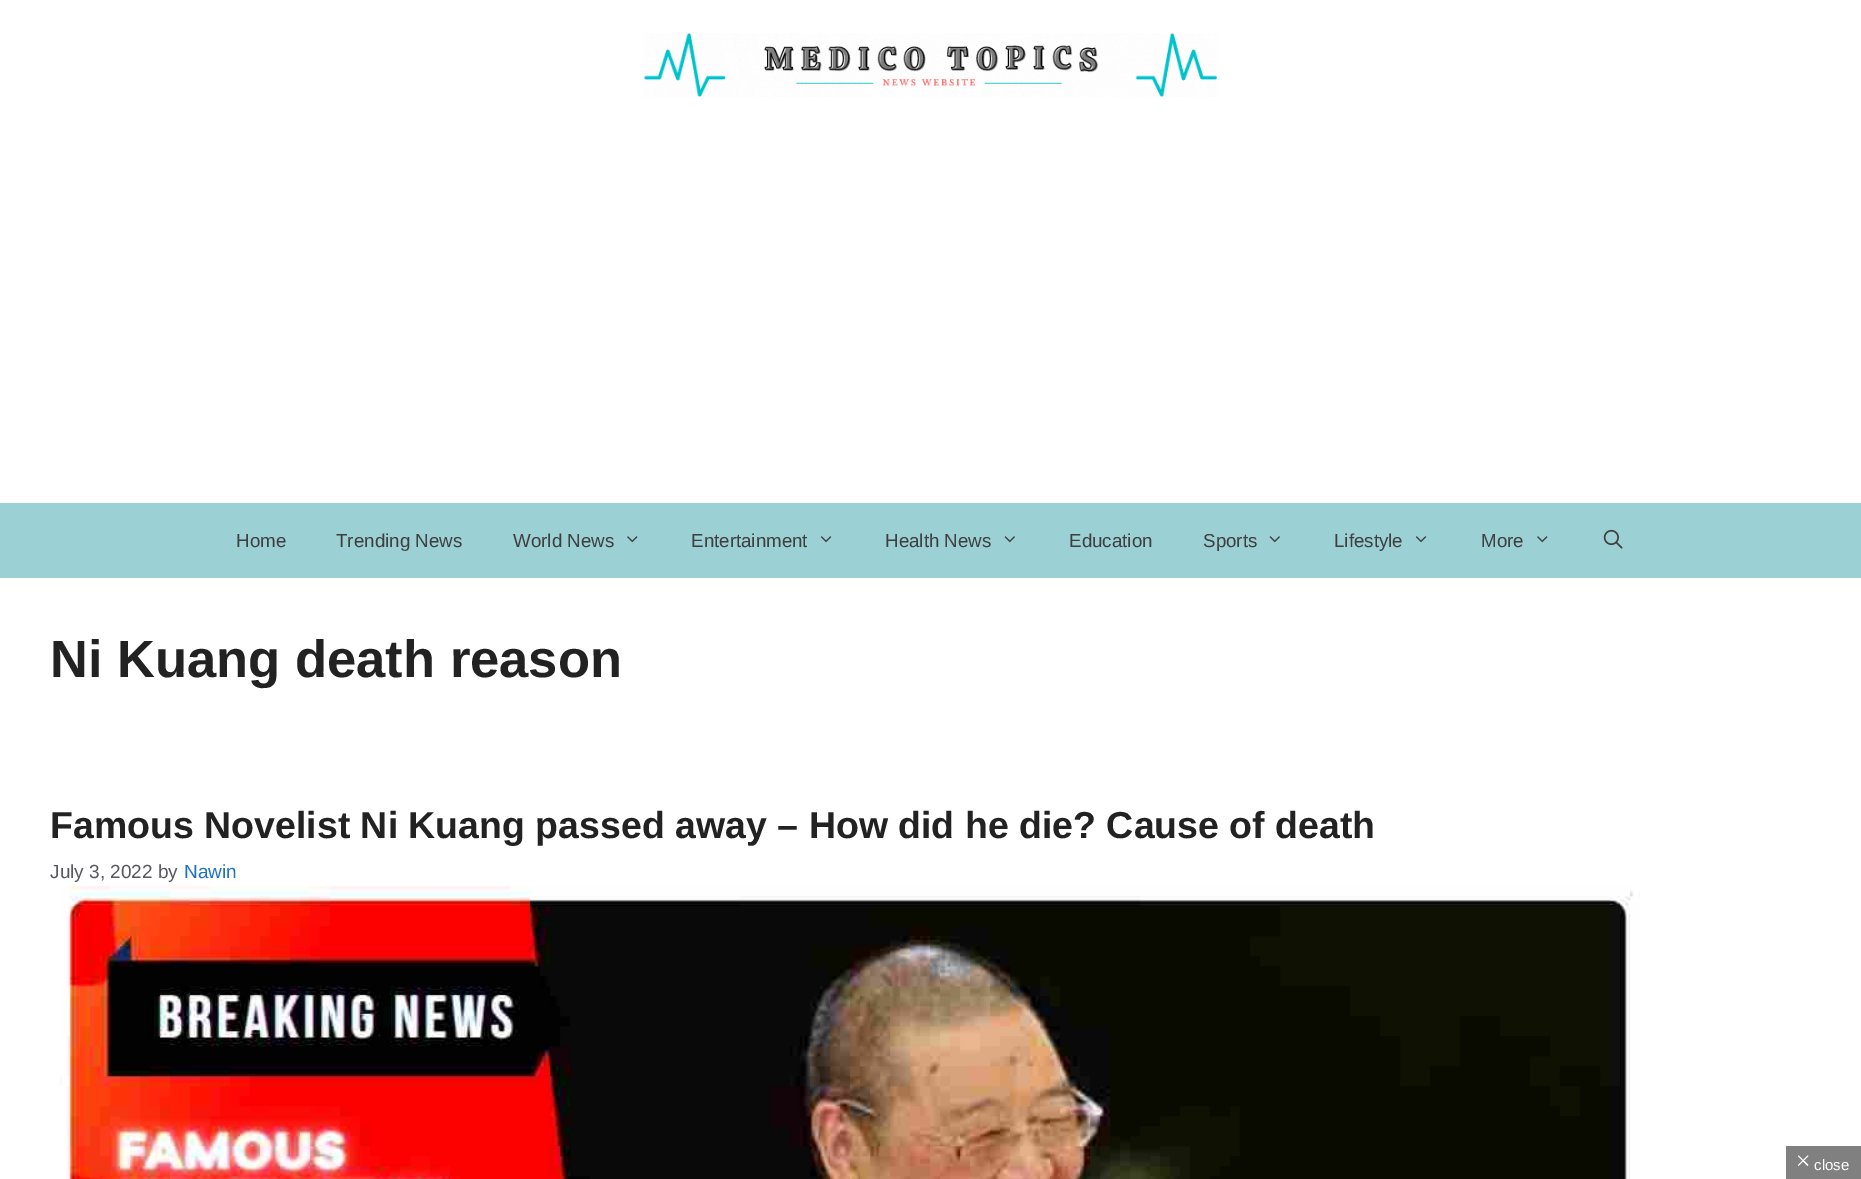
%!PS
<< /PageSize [1861 1179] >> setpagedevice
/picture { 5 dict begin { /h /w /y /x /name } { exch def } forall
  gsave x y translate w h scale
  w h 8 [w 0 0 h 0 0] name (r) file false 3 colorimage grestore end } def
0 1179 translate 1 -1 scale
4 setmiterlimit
0.608 0.816 0.831 setrgbcolor
0 0 1861 1179 rectfill
1 setgray
0 0 1861 503 rectfill
(img1.rgb) 643 33 574 64 picture
/LiberationSans-Regular [18.75 0 0 -18.75 0 0] selectfont
0.247 setgray
236 547 moveto (Home) show
336 547 moveto (Trending News) show
513 547 moveto (World News) show
(img2.rgb) 627 536 11 7 picture
691 547 moveto (Entertainment) show
(img3.rgb) 820 536 12 7 picture
885 547 moveto (Health News) show
(img4.rgb) 1004 536 11 7 picture
1069 547 moveto (Education) show
1203 547 moveto (Sports) show
(img4.rgb) 1269 536 11 7 picture
1334 547 moveto (Lifestyle) show
(img3.rgb) 1415 536 12 7 picture
1481 547 moveto (More) show
(img2.rgb) 1537 536 11 7 picture
(img5.rgb) 1603 529 20 20 picture
1 setgray
0 578 1861 601 rectfill
/LiberationSans-Bold [52.5 0 0 -52.5 0 0] selectfont
0.133 setgray
50 677 moveto (Ni Kuang death reason) show
/LiberationSans-Bold [37.5 0 0 -37.5 0 0] selectfont
50 838 moveto (Famous Novelist Ni Kuang passed away – How did he die? Cause of death) show
/LiberationSans-Regular [19 0 0 -19 0 0] selectfont
0.341 0.341 0.376 setrgbcolor
50 878 moveto (July 3, 2022 by) show
0.118 0.451 0.745 setrgbcolor
184 878 moveto (Nawin) show
(img6.rgb) 60 886 1580 293 picture
0.502 setgray
1786 1146 75 33 rectfill
1 setgray
newpath 1798.5 1155.5 moveto 1808.5 1165 lineto 1807.5 1166 lineto 1798 1156 lineto closepath fill
newpath 1807.5 1155.5 moveto 1808.5 1156 lineto 1798.5 1166 lineto 1798 1165 lineto closepath fill
/LiberationSans-Regular [15 0 0 -15 0 0] selectfont
1814 1170 moveto (close) show
showpage
